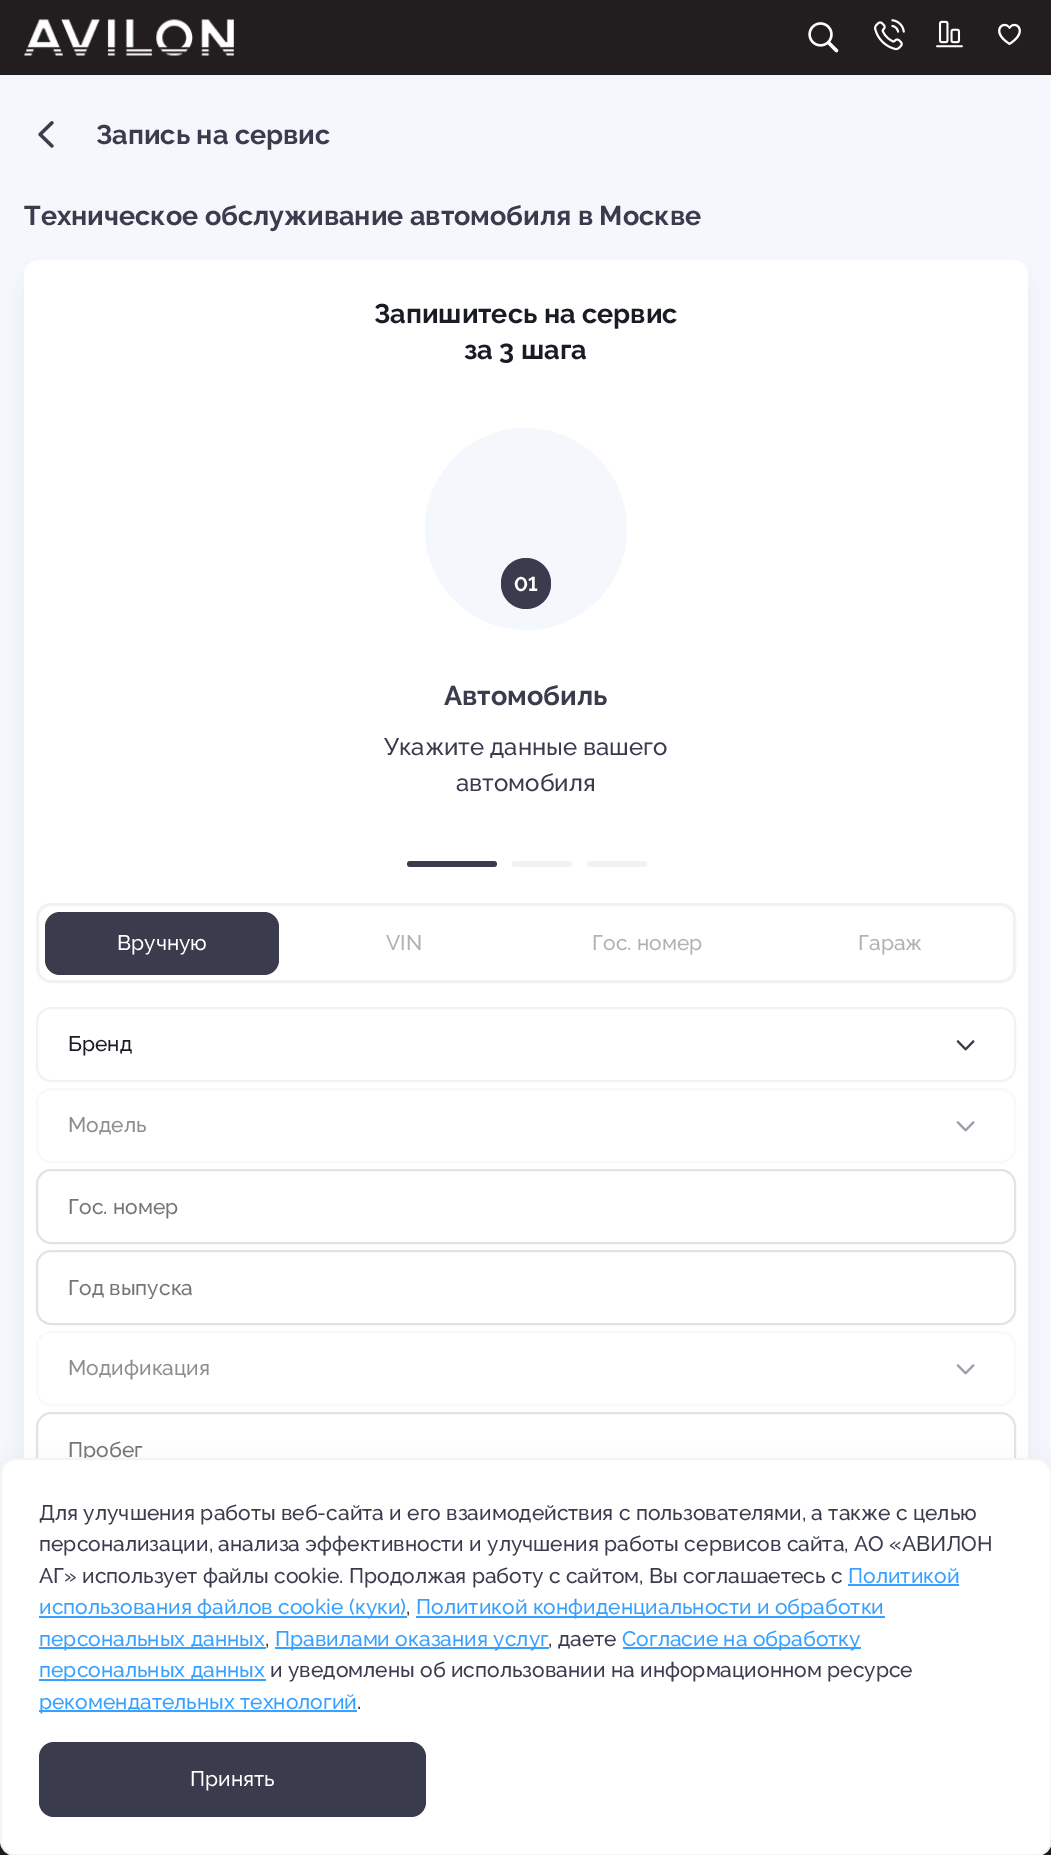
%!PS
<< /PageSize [1051 1855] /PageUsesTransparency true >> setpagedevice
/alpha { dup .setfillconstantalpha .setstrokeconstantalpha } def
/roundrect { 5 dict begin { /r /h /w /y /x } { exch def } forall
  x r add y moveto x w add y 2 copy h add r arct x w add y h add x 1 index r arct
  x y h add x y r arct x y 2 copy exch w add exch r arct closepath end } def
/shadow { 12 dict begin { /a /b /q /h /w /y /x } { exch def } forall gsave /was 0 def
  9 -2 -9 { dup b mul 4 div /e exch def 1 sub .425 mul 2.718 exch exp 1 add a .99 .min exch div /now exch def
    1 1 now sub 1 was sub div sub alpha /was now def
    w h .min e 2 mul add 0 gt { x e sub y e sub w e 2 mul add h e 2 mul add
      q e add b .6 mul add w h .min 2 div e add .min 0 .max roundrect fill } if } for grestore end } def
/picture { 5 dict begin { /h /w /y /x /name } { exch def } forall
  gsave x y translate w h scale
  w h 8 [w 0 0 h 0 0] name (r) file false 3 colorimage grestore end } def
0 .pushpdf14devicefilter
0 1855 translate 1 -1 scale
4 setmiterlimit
0.957 0.973 0.988 setrgbcolor
0 0 1051 1855 rectfill
0.133 0.118 0.122 setrgbcolor
0 0 1051 75 rectfill
(img1.rgb) 24 19 210 37 picture
(img2.rgb) 808 22 31 31 picture
(img3.rgb) 874 19 31 32 picture
(img4.rgb) 936 20 27 28 picture
(img5.rgb) 998 23 23 22 picture
(img6.rgb) 38 121 16 27 picture
/Raleway-Bold [27 0 0 -27 0 0] selectfont
0.227 0.231 0.302 setrgbcolor
96 144 moveto (Запись на сервис) show
24 225 moveto (Техническое обслуживание автомобиля в Москве) show
0 setgray
39 290 974 1416 0 15 0.15 shadow
1 setgray
24 260 1004 1446 15 roundrect fill
0.098 0.11 0.145 setrgbcolor
374 323 moveto (Запишитесь на сервис) show
464 359 moveto (за 3 шага) show
0.957 0.973 0.988 setrgbcolor
newpath 526 529 101 0 360 arc closepath fill
0.227 0.231 0.302 setrgbcolor
501 558 50 51 25 roundrect fill
/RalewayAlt-Bold [20 0 0 -20 0 0] selectfont
1 setgray
514 591 moveto (01) show
/Raleway-Bold [27 0 0 -27 0 0] selectfont
0.227 0.231 0.302 setrgbcolor
444 705 moveto (Автомобиль) show
/Raleway-Medium [24 0 0 -24 0 0] selectfont
384 755 moveto (Укажите данные вашего) show
456 791 moveto (автомобиля) show
407 861 90 6 3 roundrect fill
0.949 setgray
512 861 60 6 3 roundrect fill
587 861 60 6 3 roundrect fill
3 setlinewidth
37.5 904.5 977 77 13.5 roundrect stroke
0.227 0.231 0.302 setrgbcolor
45 912 234 63 15 roundrect fill
/Raleway-Medium [21 0 0 -21 0 0] selectfont
1 setgray
117 950 moveto (Вручную) show
0.698 setgray
386 950 moveto (VIN) show
592 950 moveto (Гос. номер) show
858 950 moveto (Гараж) show
0.949 setgray
2 setlinewidth
37 1008 978 73 14 roundrect stroke
0.098 0.11 0.145 setrgbcolor
68 1051 moveto (Бренд) show
(img7.rgb) 956 1040 19 11 picture
0.976 setgray
37 1089 978 73 14 roundrect stroke
0.549 0.557 0.573 setrgbcolor
68 1132 moveto (Модель) show
(img8.rgb) 956 1121 19 11 picture
0.89 0.89 0.898 setrgbcolor
37 1170 978 73 14 roundrect stroke
0.459 setgray
68 1214 moveto (Гос. номер) show
0.89 0.89 0.898 setrgbcolor
37 1251 978 73 14 roundrect stroke
gsave
68 1275 916 24 rectclip
0.459 setgray
68 1295 moveto (Год выпуска) show
grestore
0.976 setgray
37 1332 978 73 14 roundrect stroke
0.549 0.557 0.573 setrgbcolor
68 1375 moveto (Модификация) show
(img8.rgb) 956 1364 19 11 picture
0.89 0.89 0.898 setrgbcolor
37 1413 978 73 14 roundrect stroke
0.459 setgray
68 1457 moveto (Пробег) show
0.133 0.118 0.122 setrgbcolor
0 1841 1051 14 rectfill
0 setgray
-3 1470 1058 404 18 12 0.1 shadow
1 setgray
1 1459 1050 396 14 roundrect gsave fill grestore
0.957 setgray
stroke
0.227 0.231 0.302 setrgbcolor
39 1520 moveto (Для улучшения работы веб-сайта и его взаимодействия с пользователями, а также с целью) show
39 1551 moveto (персонализации, анализа эффективности и улучшения работы сервисов сайта, АО «АВИЛОН) show
39 1583 moveto (АГ» использует файлы cookie. Продолжая работу с сайтом, Вы соглашаетесь с) show
0.22 0.631 1 setrgbcolor
848 1583 moveto (Политикой) show
848 1584 111 2 rectfill
39 1616 368 2 rectfill
39 1614 moveto (использования файлов cookie \(куки\)) show
0.227 0.231 0.302 setrgbcolor
406 1614 moveto (,) show
0.22 0.631 1 setrgbcolor
416 1616 469 2 rectfill
416 1614 moveto (Политикой конфиденциальности и обработки) show
39 1647 227 2 rectfill
39 1646 moveto (персональных данных) show
0.227 0.231 0.302 setrgbcolor
265 1646 moveto (,) show
0.22 0.631 1 setrgbcolor
275 1647 274 2 rectfill
275 1646 moveto (Правилами оказания услуг) show
0.227 0.231 0.302 setrgbcolor
548 1646 moveto (, даете) show
0.22 0.631 1 setrgbcolor
623 1647 238 2 rectfill
622 1646 moveto (Согласие на обработку) show
39 1679 227 2 rectfill
39 1677 moveto (персональных данных) show
0.227 0.231 0.302 setrgbcolor
270 1677 moveto (и уведомлены об использовании на информационном ресурсе) show
0.22 0.631 1 setrgbcolor
39 1710 318 2 rectfill
39 1709 moveto (рекомендательных технологий) show
0.227 0.231 0.302 setrgbcolor
357 1709 moveto (.) show
39 1742 387 75 15 roundrect fill
1 setgray
190 1786 moveto (Принять) show
.poppdf14devicefilter showpage
